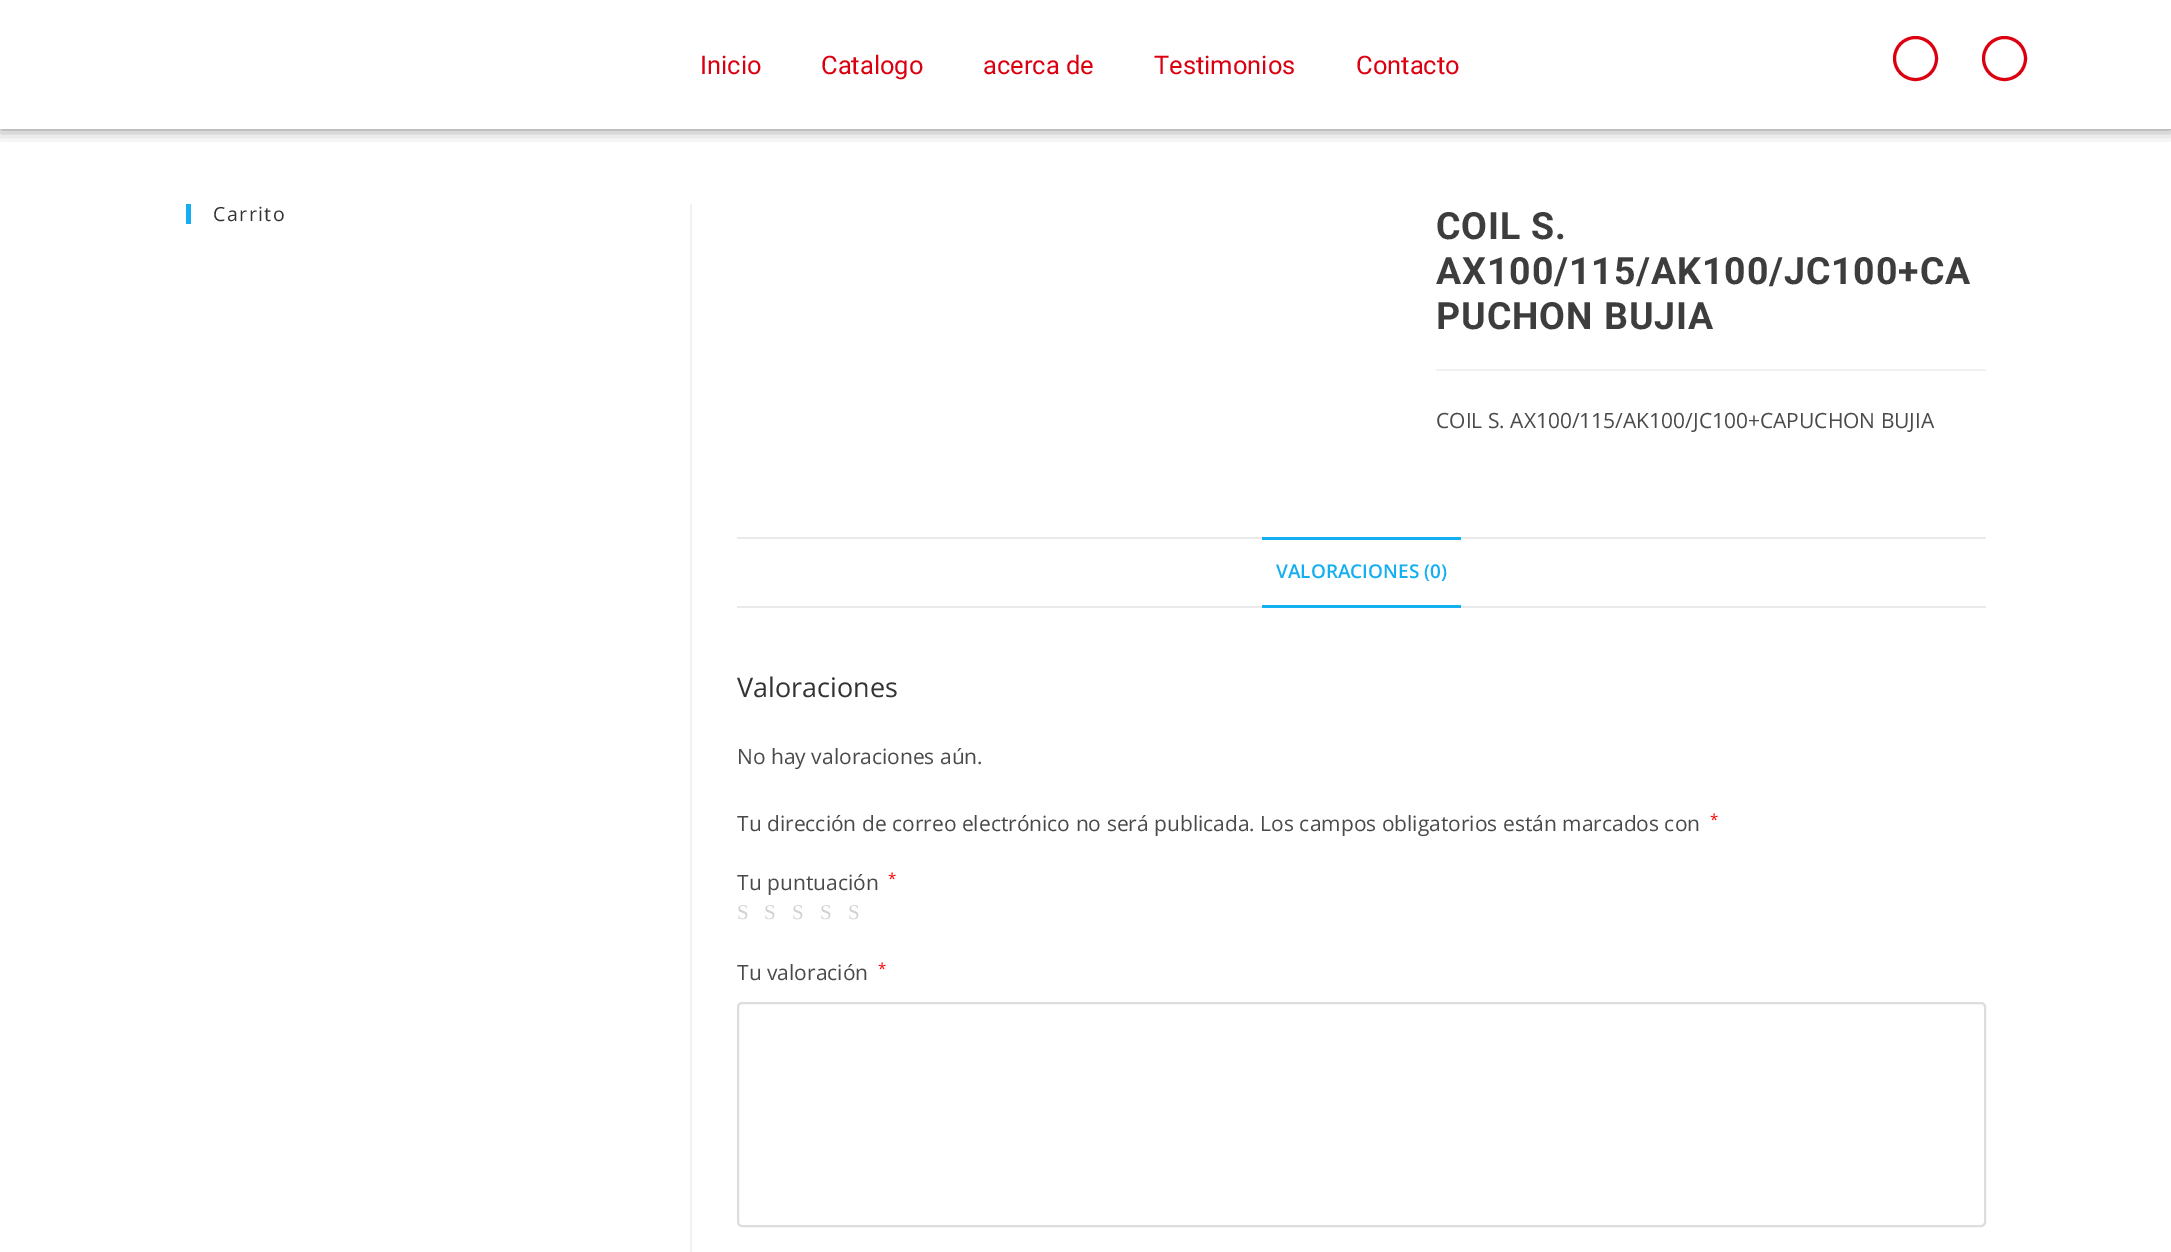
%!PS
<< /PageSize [2171 1252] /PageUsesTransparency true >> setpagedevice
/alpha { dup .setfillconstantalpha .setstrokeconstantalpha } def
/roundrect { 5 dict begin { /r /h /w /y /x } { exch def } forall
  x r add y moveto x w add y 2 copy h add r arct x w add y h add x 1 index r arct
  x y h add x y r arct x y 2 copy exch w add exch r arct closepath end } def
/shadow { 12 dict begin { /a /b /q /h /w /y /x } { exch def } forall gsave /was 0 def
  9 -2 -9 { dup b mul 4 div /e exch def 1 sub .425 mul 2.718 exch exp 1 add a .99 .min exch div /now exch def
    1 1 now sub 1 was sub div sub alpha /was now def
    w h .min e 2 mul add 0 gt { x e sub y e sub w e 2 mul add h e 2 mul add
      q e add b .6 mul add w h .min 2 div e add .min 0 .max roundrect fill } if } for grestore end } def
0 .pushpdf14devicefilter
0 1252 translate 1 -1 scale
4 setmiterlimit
1 setgray
0 0 2171 1252 rectfill
gsave
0 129 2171 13 rectclip
0 setgray
0 0 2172 129 0 7.5 0.5 shadow
grestore
/Roboto-Regular [25.5 0 0 -25.5 0 0] selectfont
0.859 0 0.063 setrgbcolor
700 74 moveto (Inicio) show
821 74 moveto (Catalogo) show
983 74 moveto (acerca de) show
1154 74 moveto (Testimonios) show
1356 74 moveto (Contacto) show
3 setlinewidth
newpath 1915.5 58.5 21 0 360 arc closepath stroke
newpath 2004.5 58.5 21 0 360 arc closepath stroke
0.075 0.686 0.941 setrgbcolor
186 204 5 20 rectfill
/OpenSans-Regular [19.5 0 0 -19.5 0 0] selectfont
0.2 setgray
213 221 moveto 1.5 0 (Carrito) ashow
0.945 setgray
690 204 2 1048 rectfill
1436 369 550 2 rectfill
/Roboto-Bold [37.5 0 0 -37.5 0 0] selectfont
0.239 setgray
1436 239 moveto 0.9 0 (COIL S.) ashow
1436 284 moveto 0.9 0 (AX100/115/AK100/JC100+CA) ashow
1436 329 moveto 0.9 0 (PUCHON BUJIA) ashow
/OpenSans-Regular [21 0 0 -21 0 0] selectfont
0.29 setgray
1436 428 moveto (COIL S. AX100/115/AK100/JC100+CAPUCHON BUJIA) show
0.918 setgray
737 537 1249 2 rectfill
737 606 1249 2 rectfill
0.075 0.686 0.941 setrgbcolor
1262 537 199 3 rectfill
1262 605 199 3 rectfill
/OpenSans-SemiBold [19 0 0 -19 0 0] selectfont
1276 578 moveto (VALORACIONES \(0\)) show
/OpenSans-Regular [27 0 0 -27 0 0] selectfont
0.2 setgray
737 697 moveto (Valoraciones) show
/OpenSans-Regular [21 0 0 -21 0 0] selectfont
0.29 setgray
737 764 moveto (No hay valoraciones aún.) show
737 831 moveto (Tu dirección de correo electrónico no será publicada. Los campos obligatorios están marcados con) show
/OpenSans-Regular [15 0 0 -15 0 0] selectfont
1 0 0 setrgbcolor
1710 825 moveto (*) show
/OpenSans-Regular [21 0 0 -21 0 0] selectfont
0.29 setgray
737 890 moveto (Tu puntuación) show
/OpenSans-Regular [15 0 0 -15 0 0] selectfont
1 0 0 setrgbcolor
888 884 moveto (*) show
/LiberationSerif-Regular [21 0 0 -21 0 0] selectfont
0.816 0.82 0.824 setrgbcolor
737 919 moveto (S) show
764 919 moveto (S) show
792 919 moveto (S) show
820 919 moveto (S) show
848 919 moveto (S) show
/OpenSans-Regular [21 0 0 -21 0 0] selectfont
0.29 setgray
737 980 moveto (Tu valoración) show
/OpenSans-Regular [15 0 0 -15 0 0] selectfont
1 0 0 setrgbcolor
878 974 moveto (*) show
0.867 setgray
2 setlinewidth
738 1003 1247 223 4 roundrect stroke
.poppdf14devicefilter showpage
